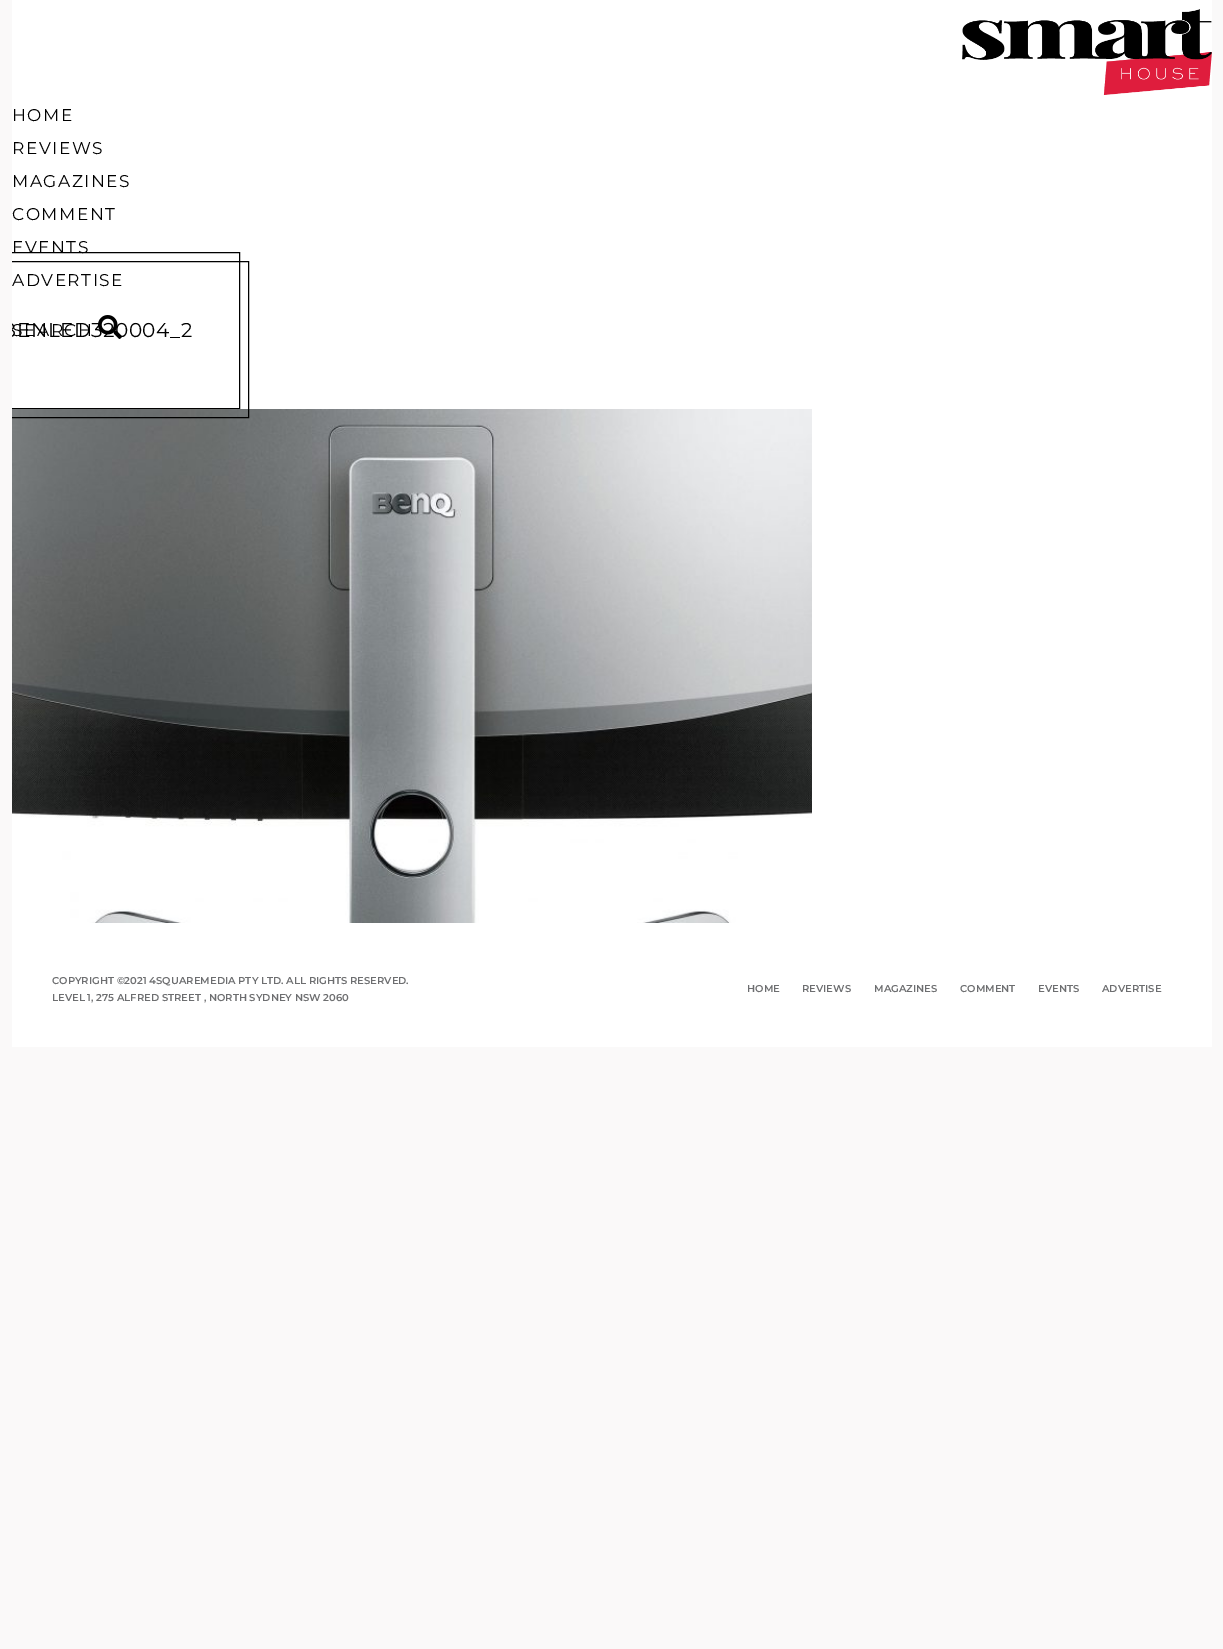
%!PS
<< /PageSize [1223 1649] >> setpagedevice
/picture { 5 dict begin { /h /w /y /x /name } { exch def } forall
  gsave x y translate w h scale
  w h 8 [w 0 0 h 0 0] name (r) file false 3 colorimage grestore end } def
0 1649 translate 1 -1 scale
4 setmiterlimit
0.98 0.976 0.976 setrgbcolor
0 0 1223 1649 rectfill
1 setgray
12 0 1200 1047 rectfill
(img1.rgb) 962 9 250 86 picture
/Montserrat-Regular [17 0 0 -17 0 0] selectfont
0 setgray
12 121 moveto 1.5 0 (HOME) ashow
12 154 moveto 1.5 0 (REVIEWS) ashow
12 187 moveto 1.5 0 (MAGAZINES) ashow
12 220 moveto 1.5 0 (COMMENT) ashow
gsave
12 0 1200 1047 rectclip
-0.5 252.5 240 156 rectstroke
grestore
12 253 moveto 1.5 0 (EVENTS) ashow
(img3.rgb) 12 409 800 514 picture
gsave
12 0 1200 1047 rectclip
-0.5 261.5 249 156 rectstroke
grestore
12 286 moveto 1.5 0 (ADVERTISE) ashow
gsave
12 0 1200 1047 rectclip
/Montserrat-Regular [20 0 0 -20 0 0] selectfont
1 337 moveto 0.6 0 (BENLED320004_2) ashow
grestore
12 336 moveto 1.5 0 (SEARCH) ashow
(img2.rgb) 98 315 24 24 picture
/Montserrat-SemiBold [10 0 0 -10 0 0] selectfont
0.427 0.431 0.439 setrgbcolor
52 984 moveto (COPYRIGHT ©2021 4SQUAREMEDIA PTY LTD. ALL RIGHTS RESERVED.) show
52 1001 moveto (LEVEL 1, 275 ALFRED STREET , NORTH SYDNEY NSW 2060) show
747 992 moveto (HOME) show
802 992 moveto (REVIEWS) show
874 992 moveto (MAGAZINES) show
960 992 moveto (COMMENT) show
1038 992 moveto (EVENTS) show
1102 992 moveto (ADVERTISE) show
showpage
